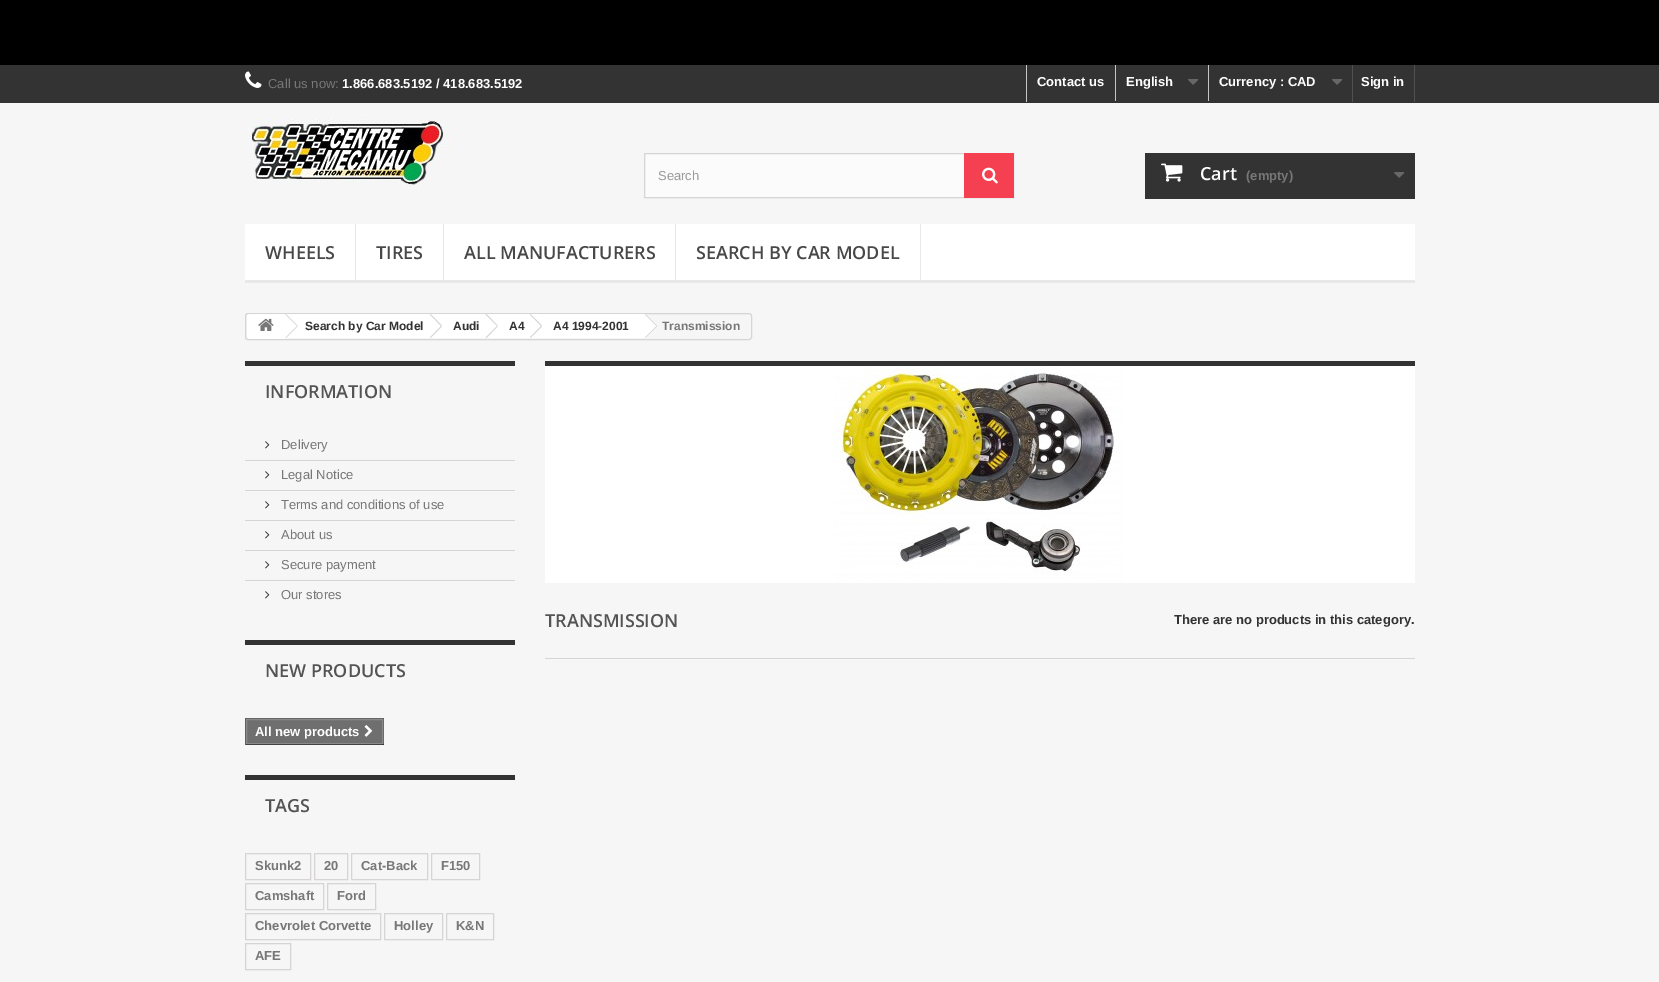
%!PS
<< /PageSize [1659 982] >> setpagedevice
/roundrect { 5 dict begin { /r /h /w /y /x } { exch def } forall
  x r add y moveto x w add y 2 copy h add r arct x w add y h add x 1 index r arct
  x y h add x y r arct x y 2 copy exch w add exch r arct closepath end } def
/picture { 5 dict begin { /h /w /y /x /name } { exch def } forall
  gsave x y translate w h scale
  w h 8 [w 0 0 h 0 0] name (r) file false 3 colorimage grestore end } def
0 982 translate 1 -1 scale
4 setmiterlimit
0.965 setgray
0 0 1659 982 rectfill
0 setgray
0 0 1659 65 rectfill
0.2 setgray
0 65 1659 38 rectfill
(img1.rgb) 245 71 17 17 picture
/LiberationSans-Regular [13 0 0 -13 0 0] selectfont
0.467 setgray
268 88 moveto (Call us now:) show
/LiberationSans-Bold [13 0 0 -13 0 0] selectfont
1 setgray
342 88 moveto (1.866.683.5192 / 418.683.5192) show
0.776 setgray
1026 65 1 37 rectfill
1 setgray
1037 86 moveto (Contact us) show
0.776 setgray
1115 65 1 36 rectfill
1 setgray
1126 86 moveto (English) show
(img2.rgb) 1188 79 11 6 picture
0.776 setgray
1208 65 1 36 rectfill
1 setgray
1219 86 moveto (Currency : CAD) show
(img2.rgb) 1332 79 11 6 picture
0.318 setgray
1414 65 1 37 rectfill
1352 65 1 37 rectfill
1 setgray
1361 86 moveto (Sign in) show
(img3.rgb) 245 118 208 67 picture
0.984 setgray
645 154 319 43 rectfill
0.839 0.831 0.831 setrgbcolor
644.5 153.5 369 44 rectstroke
/LiberationSans-Regular [13 0 0 -13 0 0] selectfont
0.6 setgray
658 180 moveto (Search) show
0.957 0.251 0.318 setrgbcolor
964 153 50 45 rectfill
(img4.rgb) 982 167 16 17 picture
0.2 setgray
1145 153 270 46 rectfill
(img5.rgb) 1161 163 22 19 picture
/OpenSans-SemiBold [18 0 0 -18 0 0] selectfont
1 setgray
1200 180 moveto (Cart) show
/LiberationSans-Bold [13 0 0 -13 0 0] selectfont
0.467 setgray
1246 180 moveto (\(empty\)) show
(img2.rgb) 1394 172 11 6 picture
1 setgray
245 224 1170 56 rectfill
0.91 setgray
245 280 1170 3 rectfill
355 224 1 59 rectfill
/OpenSans-SemiBold [18 0 0 -18 0 0] selectfont
0.282 setgray
265 259 moveto (WHEELS) show
0.91 setgray
443 224 1 59 rectfill
0.282 setgray
376 259 moveto (TIRES) show
0.91 setgray
675 224 1 59 rectfill
0.282 setgray
464 259 moveto (ALL MANUFACTURERS) show
0.91 setgray
920 224 1 59 rectfill
0.282 setgray
696 259 moveto (SEARCH BY CAR MODEL) show
0.839 0.831 0.831 setrgbcolor
245.5 313.5 506 26 2.5 roundrect stroke
1 setgray
newpath 250 314 moveto 285 314 lineto 285 339 lineto 250 339 lineto 248.5 339 247 337.5 247 336 curveto 247 317 lineto 247 315.5 248.5 314 250 314 curveto closepath fill
(img6.rgb) 258 318 16 13 picture
285 314 146 24 rectfill
0.839 0.831 0.831 setrgbcolor
newpath 286 314 moveto 297.5 325.5 lineto 297 326 lineto 285.5 314.5 lineto closepath 297 326 moveto 297.5 326.5 lineto 286 338 lineto 285.5 337.5 lineto closepath fill
/LiberationSans-Bold [12 0 0 -12 0 0] selectfont
0.2 setgray
305 330 moveto (Search by Car Model) show
1 setgray
newpath 441.5 314.5 moveto 451 324.5 lineto 452 325.5 452 326.5 451 327.5 curveto 441.5 337.5 lineto 440.5 338 439.5 338 438.5 337.5 curveto 428.5 327.5 lineto 428 326.5 428 325.5 428.5 324.5 curveto 438.5 314.5 lineto 439.5 314 440.5 314 441.5 314.5 curveto closepath fill
431 314 56 24 rectfill
0.839 0.831 0.831 setrgbcolor
newpath 430.5 314 moveto 442 325.5 lineto 441 326 lineto 430 314.5 lineto closepath 441 326 moveto 442 326.5 lineto 430.5 338 lineto 430 337.5 lineto closepath fill
0.2 setgray
453 330 moveto (Audi) show
1 setgray
newpath 497 314.5 moveto 507 324.5 lineto 507.5 325.5 507.5 326.5 507 327.5 curveto 497 337.5 lineto 496 338 495 338 494 337.5 curveto 484.5 327.5 lineto 483.5 326.5 483.5 325.5 484.5 324.5 curveto 494 314.5 lineto 495 314 496 314 497 314.5 curveto closepath fill
487 314 44 24 rectfill
0.839 0.831 0.831 setrgbcolor
newpath 486.5 314 moveto 497.5 325.5 lineto 497 326 lineto 485.5 314.5 lineto closepath 497 326 moveto 497.5 326.5 lineto 486.5 338 lineto 485.5 337.5 lineto closepath fill
0.2 setgray
509 330 moveto (A4) show
1 setgray
newpath 541.5 314.5 moveto 551 324.5 lineto 552 325.5 552 326.5 551 327.5 curveto 541.5 337.5 lineto 540.5 338 539.5 338 538.5 337.5 curveto 528.5 327.5 lineto 528 326.5 528 325.5 528.5 324.5 curveto 538.5 314.5 lineto 539.5 314 540.5 314 541.5 314.5 curveto closepath fill
531 314 113 24 rectfill
0.839 0.831 0.831 setrgbcolor
newpath 530.5 314 moveto 542 325.5 lineto 541 326 lineto 530 314.5 lineto closepath 541 326 moveto 542 326.5 lineto 530.5 338 lineto 530 337.5 lineto closepath fill
0.2 setgray
553 330 moveto (A4 1994-2001) show
1 setgray
newpath 646.5 314.5 moveto 656.5 324.5 lineto 657 325.5 657 326.5 656.5 327.5 curveto 646.5 337.5 lineto 645.5 338 644.5 338 643.5 337.5 curveto 633.5 327.5 lineto 633 326.5 633 325.5 633.5 324.5 curveto 643.5 314.5 lineto 644.5 314 645.5 314 646.5 314.5 curveto closepath fill
0.839 0.831 0.831 setrgbcolor
newpath 645.5 314 moveto 657 325.5 lineto 656.5 326 lineto 645 314.5 lineto closepath 656.5 326 moveto 657 326.5 lineto 645.5 338 lineto 645 337.5 lineto closepath fill
0.467 setgray
662 330 moveto (Transmission) show
0.2 setgray
245 361 270 5 rectfill
/OpenSans-SemiBold [18 0 0 -18 0 0] selectfont
0.333 0.329 0.329 setrgbcolor
265 398 moveto (INFORMATION) show
(img7.rgb) 265 441 5 8 picture
/LiberationSans-Regular [13 0 0 -13 0 0] selectfont
0.467 setgray
281 449 moveto (Delivery) show
0.839 0.831 0.831 setrgbcolor
245 460 270 1 rectfill
(img7.rgb) 265 471 5 8 picture
0.467 setgray
281 479 moveto (Legal Notice) show
0.839 0.831 0.831 setrgbcolor
245 490 270 1 rectfill
(img7.rgb) 265 501 5 8 picture
0.467 setgray
281 509 moveto (Terms and conditions of use) show
0.839 0.831 0.831 setrgbcolor
245 520 270 1 rectfill
(img7.rgb) 265 531 5 8 picture
0.467 setgray
281 539 moveto (About us) show
0.839 0.831 0.831 setrgbcolor
245 550 270 1 rectfill
(img7.rgb) 265 561 5 8 picture
0.467 setgray
281 569 moveto (Secure payment) show
0.839 0.831 0.831 setrgbcolor
245 580 270 1 rectfill
(img7.rgb) 265 591 5 8 picture
0.467 setgray
281 599 moveto (Our stores) show
0.2 setgray
245 640 270 5 rectfill
/OpenSans-SemiBold [18 0 0 -18 0 0] selectfont
0.333 0.329 0.329 setrgbcolor
265 677 moveto (NEW PRODUCTS) show
0.4 setgray
245 718 139 1 rectfill
0.373 setgray
383 718 1 27 rectfill
0.161 setgray
245 744 139 1 rectfill
0.373 setgray
245 718 1 27 rectfill
0.435 setgray
newpath 246.5 719.5 moveto 382.5 719.5 lineto 382.5 743.5 lineto 246.5 743.5 lineto closepath gsave fill grestore
0.545 0.541 0.541 setrgbcolor
stroke
/LiberationSans-Bold [13 0 0 -13 0 0] selectfont
1 setgray
255 736 moveto (All new products) show
(img8.rgb) 364 725 9 12 picture
0.2 setgray
245 775 270 5 rectfill
/OpenSans-SemiBold [18 0 0 -18 0 0] selectfont
0.333 0.329 0.329 setrgbcolor
265 812 moveto (TAGS) show
0.839 0.831 0.831 setrgbcolor
245.5 853.5 65 26 rectstroke
/LiberationSans-Bold [13 0 0 -13 0 0] selectfont
0.467 setgray
255 870 moveto (Skunk2) show
0.839 0.831 0.831 setrgbcolor
314.5 853.5 33 26 rectstroke
0.467 setgray
324 870 moveto (20) show
0.839 0.831 0.831 setrgbcolor
351.5 853.5 76 26 rectstroke
0.467 setgray
361 870 moveto (Cat-Back) show
0.839 0.831 0.831 setrgbcolor
431.5 853.5 48 26 rectstroke
0.467 setgray
441 870 moveto (F150) show
0.839 0.831 0.831 setrgbcolor
245.5 883.5 78 26 rectstroke
0.467 setgray
255 900 moveto (Camshaft) show
0.839 0.831 0.831 setrgbcolor
327.5 883.5 48 26 rectstroke
0.467 setgray
337 900 moveto (Ford) show
0.839 0.831 0.831 setrgbcolor
245.5 913.5 135 26 rectstroke
0.467 setgray
255 930 moveto (Chevrolet Corvette) show
0.839 0.831 0.831 setrgbcolor
384.5 913.5 58 26 rectstroke
0.467 setgray
394 930 moveto (Holley) show
0.839 0.831 0.831 setrgbcolor
446.5 913.5 47 26 rectstroke
0.467 setgray
456 930 moveto (K&N) show
0.839 0.831 0.831 setrgbcolor
245.5 943.5 45 26 rectstroke
0.467 setgray
255 960 moveto (AFE) show
0.2 setgray
545 361 870 5 rectfill
(img9.rgb) 545 366 870 217 picture
0.839 0.831 0.831 setrgbcolor
545 658 870 1 rectfill
/OpenSans-SemiBold [18 0 0 -18 0 0] selectfont
0.333 0.329 0.329 setrgbcolor
545 627 moveto (TRANSMISSION) show
/LiberationSans-Bold [13 0 0 -13 0 0] selectfont
0.2 setgray
1174 624 moveto (There are no products in this category.) show
showpage
